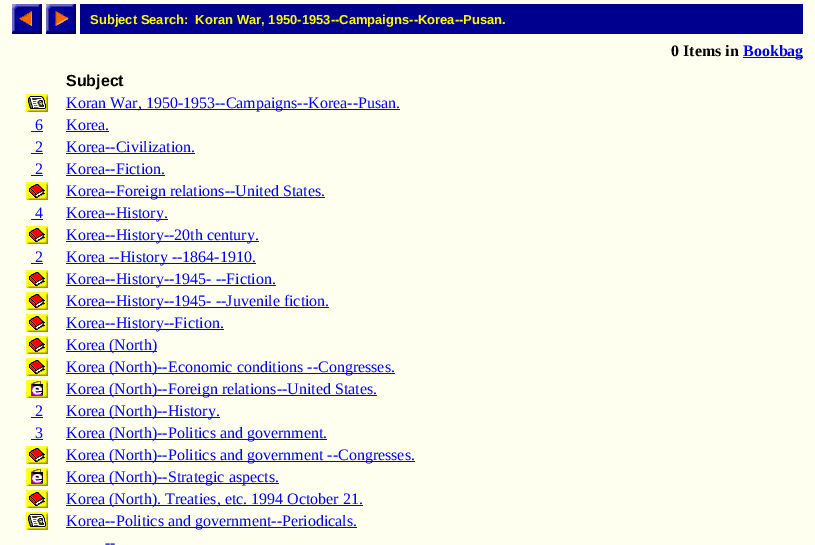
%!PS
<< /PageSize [815 545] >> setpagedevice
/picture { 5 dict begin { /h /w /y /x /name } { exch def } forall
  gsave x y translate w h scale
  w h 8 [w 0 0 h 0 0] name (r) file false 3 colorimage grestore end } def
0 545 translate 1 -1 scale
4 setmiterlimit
1 1 0.937 setrgbcolor
0 0 815 545 rectfill
(img1.rgb) 12 4 30 30 picture
(img2.rgb) 46 4 30 30 picture
0 0 0.557 setrgbcolor
80 4 723 30 rectfill
/LiberationSans-Bold [13 0 0 -13 0 0] selectfont
1 1 0 setrgbcolor
90 24 moveto (Subject Search:  Koran War, 1950-1953--Campaigns--Korea--Pusan.) show
/LiberationSerif-Bold [16 0 0 -16 0 0] selectfont
0 setgray
671 56 moveto (0 Items in) show
0 0 0.933 setrgbcolor
743 57 60 1 rectfill
743 56 moveto (Bookbag) show
/LiberationSans-Bold [16 0 0 -16 0 0] selectfont
0 setgray
66 86 moveto (Subject) show
(img3.rgb) 26 94 22 18 picture
0 0 0.933 setrgbcolor
66 109 334 1 rectfill
/LiberationSerif-Regular [16 0 0 -16 0 0] selectfont
66 108 moveto (Koran War, 1950-1953--Campaigns--Korea--Pusan.) show
35 130 moveto (6) show
31 131 12 1 rectfill
66 130 moveto (Korea.) show
66 131 43 1 rectfill
35 152 moveto (2) show
31 153 12 1 rectfill
66 152 moveto (Korea--Civilization.) show
66 153 129 1 rectfill
35 174 moveto (2) show
31 175 12 1 rectfill
66 174 moveto (Korea--Fiction.) show
66 175 99 1 rectfill
(img4.rgb) 26 182 22 18 picture
66 197 259 1 rectfill
66 196 moveto (Korea--Foreign relations--United States.) show
35 218 moveto (4) show
31 219 12 1 rectfill
66 219 102 1 rectfill
66 218 moveto (Korea--History.) show
(img4.rgb) 26 226 22 18 picture
66 241 193 1 rectfill
66 240 moveto (Korea--History--20th century.) show
35 262 moveto (2) show
31 263 12 1 rectfill
66 263 190 1 rectfill
66 262 moveto (Korea --History --1864-1910.) show
(img4.rgb) 26 270 22 18 picture
66 285 210 1 rectfill
66 284 moveto (Korea--History--1945- --Fiction.) show
(img4.rgb) 26 292 22 18 picture
66 307 263 1 rectfill
66 306 moveto (Korea--History--1945- --Juvenile fiction.) show
(img4.rgb) 26 314 22 18 picture
66 329 158 1 rectfill
66 328 moveto (Korea--History--Fiction.) show
(img4.rgb) 26 336 22 18 picture
66 351 91 1 rectfill
66 350 moveto (Korea \(North\)) show
(img4.rgb) 26 358 22 18 picture
66 373 329 1 rectfill
66 372 moveto (Korea \(North\)--Economic conditions --Congresses.) show
(img5.rgb) 26 380 22 18 picture
66 395 311 1 rectfill
66 394 moveto (Korea \(North\)--Foreign relations--United States.) show
35 416 moveto (2) show
31 417 12 1 rectfill
66 417 154 1 rectfill
66 416 moveto (Korea \(North\)--History.) show
35 438 moveto (3) show
31 439 12 1 rectfill
66 439 261 1 rectfill
66 438 moveto (Korea \(North\)--Politics and government.) show
(img4.rgb) 26 446 22 18 picture
66 461 349 1 rectfill
66 460 moveto (Korea \(North\)--Politics and government --Congresses.) show
(img5.rgb) 26 468 22 18 picture
66 483 213 1 rectfill
66 482 moveto (Korea \(North\)--Strategic aspects.) show
(img4.rgb) 26 490 22 18 picture
66 505 297 1 rectfill
66 504 moveto (Korea \(North\). Treaties, etc. 1994 October 21.) show
(img3.rgb) 26 512 22 18 picture
66 527 291 1 rectfill
66 526 moveto (Korea--Politics and government--Periodicals.) show
105 548 moveto (--) show
showpage
